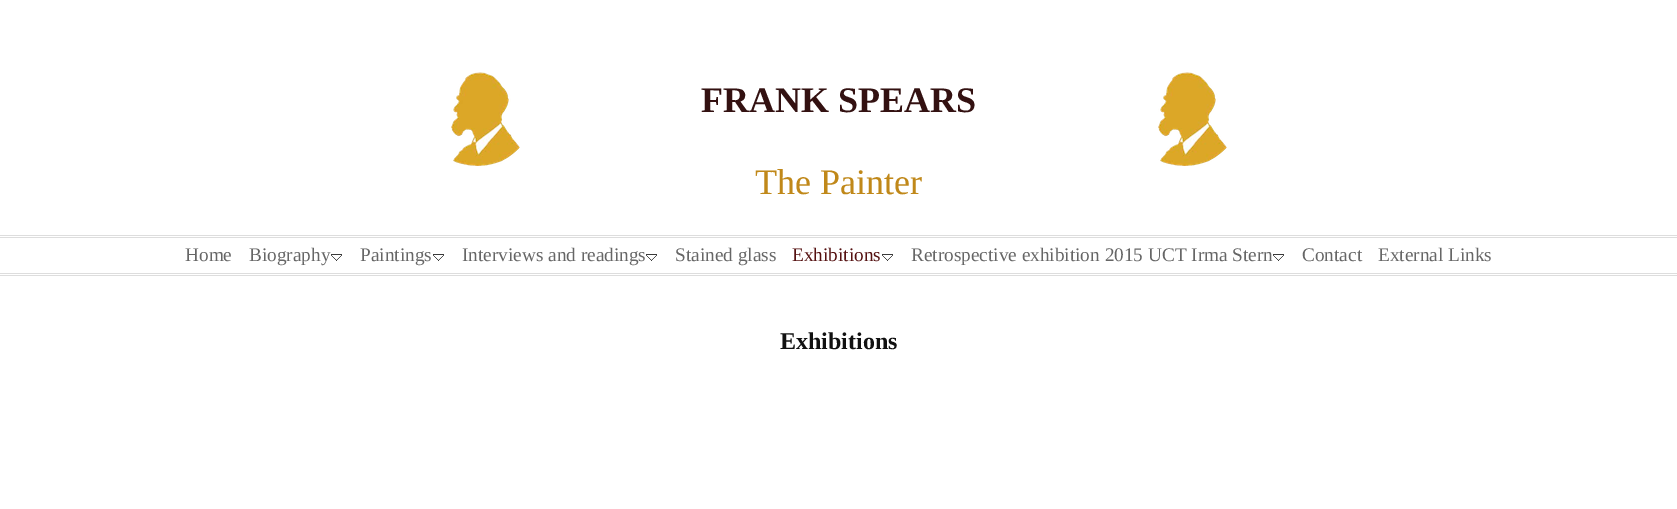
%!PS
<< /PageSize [1677 509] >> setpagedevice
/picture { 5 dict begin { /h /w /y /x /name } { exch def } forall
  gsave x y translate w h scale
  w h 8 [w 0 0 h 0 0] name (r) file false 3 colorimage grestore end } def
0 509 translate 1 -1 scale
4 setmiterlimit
1 setgray
0 0 1677 509 rectfill
(img1.rgb) 451 72 69 94 picture
/LiberationSerif-Bold [36 0 0 -36 0 0] selectfont
0.2 0.067 0.067 setrgbcolor
701 112 moveto (FRANK SPEARS) show
(img1.rgb) 1158 72 69 94 picture
/LiberationSerif-Regular [36 0 0 -36 0 0] selectfont
0.753 0.533 0.098 setrgbcolor
755 194 moveto (The Painter) show
0.867 setgray
0 235 1677 1 rectfill
0 237 1677 1 rectfill
0 273 1677 1 rectfill
0 275 1677 1 rectfill
/LiberationSerif-Regular [19.25 0 0 -19.25 0 0] selectfont
0.4 setgray
185 261 moveto (Home) show
249 261 moveto (Biography) show
(img2.rgb) 331 254 11 7 picture
360 261 moveto (Paintings) show
(img2.rgb) 433 254 11 7 picture
462 261 moveto (Interviews and readings) show
(img2.rgb) 646 254 11 7 picture
675 261 moveto (Stained glass) show
0.333 0.067 0.067 setrgbcolor
792 261 moveto (Exhibitions) show
(img2.rgb) 882 254 11 7 picture
0.4 setgray
911 261 moveto (Retrospective exhibition 2015 UCT Irma Stern) show
(img2.rgb) 1273 254 11 7 picture
1302 261 moveto (Contact) show
1378 261 moveto (External Links) show
/LiberationSerif-Bold [24 0 0 -24 0 0] selectfont
0.067 setgray
780 349 moveto (Exhibitions) show
showpage
